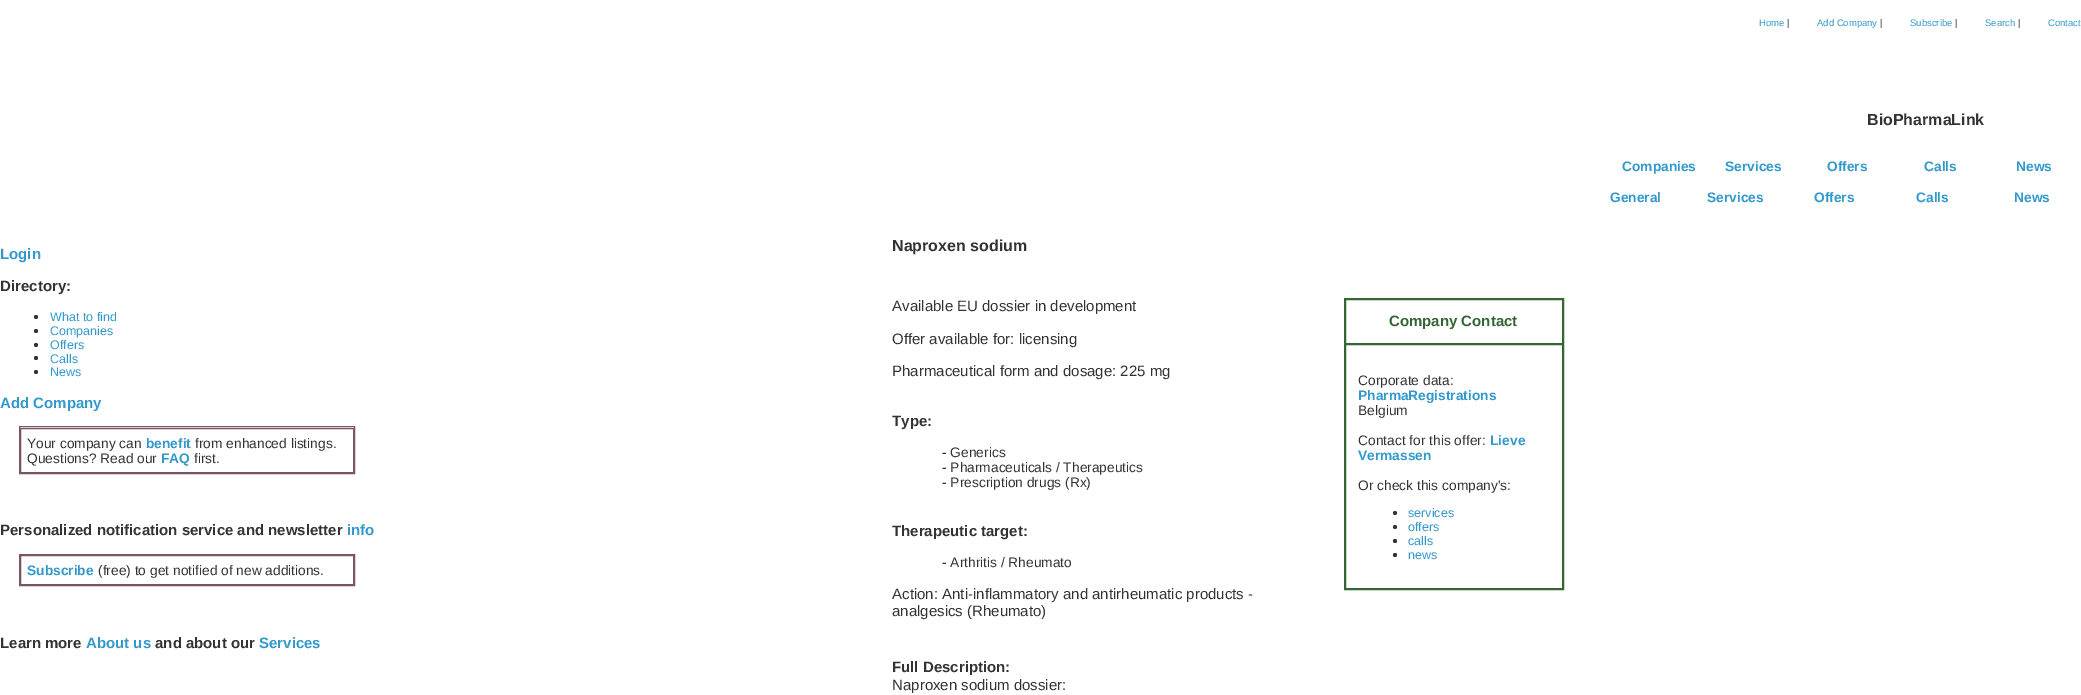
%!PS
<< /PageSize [2081 695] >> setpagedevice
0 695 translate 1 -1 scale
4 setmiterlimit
1 setgray
0 0 2081 695 rectfill
/LiberationSans-Regular [9.5 0 0 -9.5 0 0] selectfont
0.2 0.6 0.8 setrgbcolor
1759 26 moveto (Home) show
0.2 setgray
1787 26 moveto (|) show
0.2 0.6 0.8 setrgbcolor
1817 26 moveto (Add Company) show
0.2 setgray
1880 26 moveto (|) show
0.2 0.6 0.8 setrgbcolor
1910 26 moveto (Subscribe) show
0.2 setgray
1955 26 moveto (|) show
0.2 0.6 0.8 setrgbcolor
1985 26 moveto (Search) show
0.2 setgray
2018 26 moveto (|) show
0.2 0.6 0.8 setrgbcolor
2048 26 moveto (Contact) show
/LiberationSans-Bold [16 0 0 -16 0 0] selectfont
0.2 setgray
1867 125 moveto (BioPharmaLink) show
/LiberationSans-Bold [13.75 0 0 -13.75 0 0] selectfont
0.2 0.6 0.8 setrgbcolor
1622 171 moveto (Companies) show
1725 171 moveto (Services) show
1827 171 moveto (Offers) show
1924 171 moveto (Calls) show
2016 171 moveto (News) show
1610 202 moveto (General) show
1707 202 moveto (Services) show
1814 202 moveto (Offers) show
1916 202 moveto (Calls) show
2014 202 moveto (News) show
/LiberationSans-Bold [15 0 0 -15 0 0] selectfont
0 259 moveto (Login) show
0.2 setgray
0 291 moveto (Directory:) show
newpath 36 317 2 0 360 arc closepath fill
/LiberationSans-Regular [12.5 0 0 -12.5 0 0] selectfont
0.2 0.6 0.8 setrgbcolor
50 321 moveto (What to find) show
0.2 setgray
newpath 36 331 2 0 360 arc closepath fill
0.2 0.6 0.8 setrgbcolor
50 335 moveto (Companies) show
0.2 setgray
newpath 36 345 2 0 360 arc closepath fill
0.2 0.6 0.8 setrgbcolor
50 349 moveto (Offers) show
0.2 setgray
newpath 36 358 2 0 360 arc closepath fill
0.2 0.6 0.8 setrgbcolor
50 363 moveto (Calls) show
0.2 setgray
newpath 36 372 2 0 360 arc closepath fill
0.2 0.6 0.8 setrgbcolor
50 376 moveto (News) show
/LiberationSans-Bold [15 0 0 -15 0 0] selectfont
0 408 moveto (Add Company) show
0.478 0.325 0.396 setrgbcolor
19.5 426.5 335 47 rectstroke
20.5 428.5 333 44 rectstroke
/LiberationSans-Regular [13.75 0 0 -13.75 0 0] selectfont
0.2 setgray
27 448 moveto (Your company can) show
/LiberationSans-Bold [13.75 0 0 -13.75 0 0] selectfont
0.2 0.6 0.8 setrgbcolor
146 448 moveto (benefit) show
/LiberationSans-Regular [13.75 0 0 -13.75 0 0] selectfont
0.2 setgray
195 448 moveto (from enhanced listings.) show
27 463 moveto (Questions? Read our) show
/LiberationSans-Bold [13.75 0 0 -13.75 0 0] selectfont
0.2 0.6 0.8 setrgbcolor
161 463 moveto (FAQ) show
/LiberationSans-Regular [13.75 0 0 -13.75 0 0] selectfont
0.2 setgray
194 463 moveto (first.) show
/LiberationSans-Bold [15 0 0 -15 0 0] selectfont
0 535 moveto (Personalized notification service and newsletter) show
0.2 0.6 0.8 setrgbcolor
347 535 moveto (info) show
0.478 0.325 0.396 setrgbcolor
19.5 554.5 335 31 rectstroke
20.5 555.5 333 29 rectstroke
/LiberationSans-Bold [13.75 0 0 -13.75 0 0] selectfont
0.2 0.6 0.8 setrgbcolor
27 575 moveto (Subscribe) show
/LiberationSans-Regular [13.75 0 0 -13.75 0 0] selectfont
0.2 setgray
98 575 moveto (\(free\) to get notified of new additions.) show
/LiberationSans-Bold [15 0 0 -15 0 0] selectfont
0 648 moveto (Learn more) show
0.2 0.6 0.8 setrgbcolor
86 648 moveto (About us) show
0.2 setgray
155 648 moveto (and about our) show
0.2 0.6 0.8 setrgbcolor
259 648 moveto (Services) show
/LiberationSans-Bold [16 0 0 -16 0 0] selectfont
0.2 setgray
892 251 moveto (Naproxen sodium) show
/LiberationSans-Regular [15 0 0 -15 0 0] selectfont
892 311 moveto (Available EU dossier in development) show
892 344 moveto (Offer available for: licensing) show
892 376 moveto (Pharmaceutical form and dosage: 225 mg) show
/LiberationSans-Bold [15 0 0 -15 0 0] selectfont
892 426 moveto (Type:) show
/LiberationSans-Regular [13.75 0 0 -13.75 0 0] selectfont
942 457 moveto (- Generics) show
942 472 moveto (- Pharmaceuticals / Therapeutics) show
942 487 moveto (- Prescription drugs \(Rx\)) show
/LiberationSans-Bold [15 0 0 -15 0 0] selectfont
892 536 moveto (Therapeutic target:) show
/LiberationSans-Regular [13.75 0 0 -13.75 0 0] selectfont
942 567 moveto (- Arthritis / Rheumato) show
/LiberationSans-Regular [15 0 0 -15 0 0] selectfont
892 599 moveto (Action: Anti-inflammatory and antirheumatic products -) show
892 616 moveto (analgesics \(Rheumato\)) show
0.2 0.4 0.2 setrgbcolor
1344.5 298.5 219 291 rectstroke
1345.5 299.5 217 44 rectstroke
/LiberationSans-Bold [15 0 0 -15 0 0] selectfont
1389 326 moveto (Company Contact) show
1345.5 344.5 217 244 rectstroke
/LiberationSans-Regular [13.75 0 0 -13.75 0 0] selectfont
0.2 setgray
1358 385 moveto (Corporate data:) show
/LiberationSans-Bold [13.75 0 0 -13.75 0 0] selectfont
0.2 0.6 0.8 setrgbcolor
1358 400 moveto (PharmaRegistrations) show
/LiberationSans-Regular [13.75 0 0 -13.75 0 0] selectfont
0.2 setgray
1358 415 moveto (Belgium) show
1358 445 moveto (Contact for this offer:) show
/LiberationSans-Bold [13.75 0 0 -13.75 0 0] selectfont
0.2 0.6 0.8 setrgbcolor
1490 445 moveto (Lieve) show
1358 460 moveto (Vermassen) show
/LiberationSans-Regular [13.75 0 0 -13.75 0 0] selectfont
0.2 setgray
1358 490 moveto (Or check this company's:) show
newpath 1395 513 2 0 360 arc closepath fill
/LiberationSans-Regular [12.5 0 0 -12.5 0 0] selectfont
0.2 0.6 0.8 setrgbcolor
1408 517 moveto (services) show
0.2 setgray
newpath 1395 527 2 0 360 arc closepath fill
0.2 0.6 0.8 setrgbcolor
1408 531 moveto (offers) show
0.2 setgray
newpath 1395 541 2 0 360 arc closepath fill
0.2 0.6 0.8 setrgbcolor
1408 545 moveto (calls) show
0.2 setgray
newpath 1395 555 2 0 360 arc closepath fill
0.2 0.6 0.8 setrgbcolor
1408 559 moveto (news) show
/LiberationSans-Bold [15 0 0 -15 0 0] selectfont
0.2 setgray
892 672 moveto (Full Description:) show
/LiberationSans-Regular [15 0 0 -15 0 0] selectfont
892 690 moveto (Naproxen sodium dossier:) show
showpage
